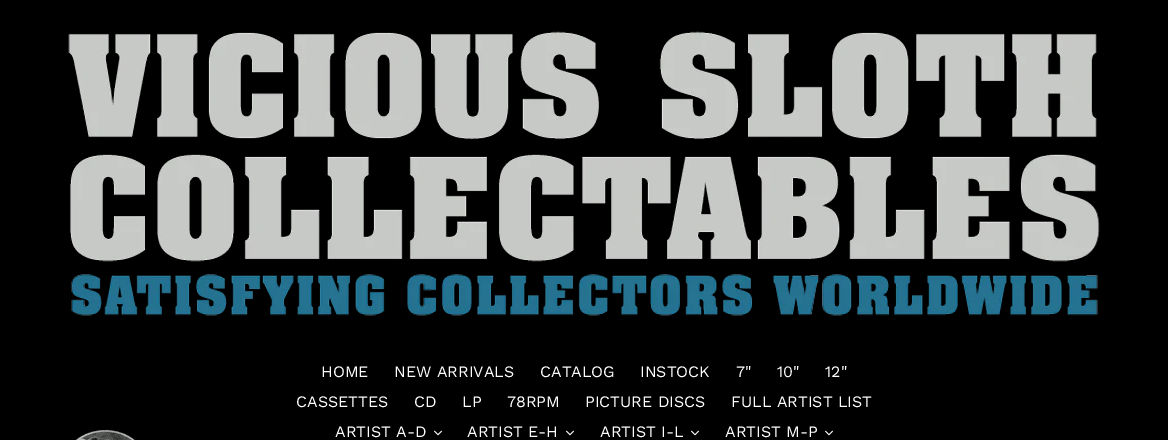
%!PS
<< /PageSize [1168 440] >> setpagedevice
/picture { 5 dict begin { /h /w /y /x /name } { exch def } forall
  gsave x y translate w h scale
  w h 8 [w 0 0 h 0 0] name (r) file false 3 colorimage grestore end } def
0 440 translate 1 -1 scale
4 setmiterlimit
0 setgray
0 0 1168 440 rectfill
(img1.rgb) 68 31 1032 285 picture
(img2.rgb) 76 429 59 11 picture
/WorkSans-Regular [16 0 0 -16 0 0] selectfont
1 setgray
321 377 moveto (HOME) show
394 377 moveto (NEW ARRIVALS) show
540 377 moveto (CATALOG) show
640 377 moveto (INSTOCK) show
736 377 moveto (7") show
777 377 moveto (10") show
825 377 moveto (12") show
296 407 moveto (CASSETTES) show
414 407 moveto (CD) show
462 407 moveto (LP) show
507 407 moveto (78RPM) show
585 407 moveto (PICTURE DISCS) show
731 407 moveto (FULL ARTIST LIST) show
335 437 moveto (ARTIST A-D) show
(img3.rgb) 434 430 8 6 picture
467 437 moveto (ARTIST E-H) show
(img3.rgb) 566 430 8 6 picture
600 437 moveto (ARTIST I-L) show
(img3.rgb) 691 430 8 6 picture
725 437 moveto (ARTIST M-P) show
(img3.rgb) 825 430 8 6 picture
showpage
